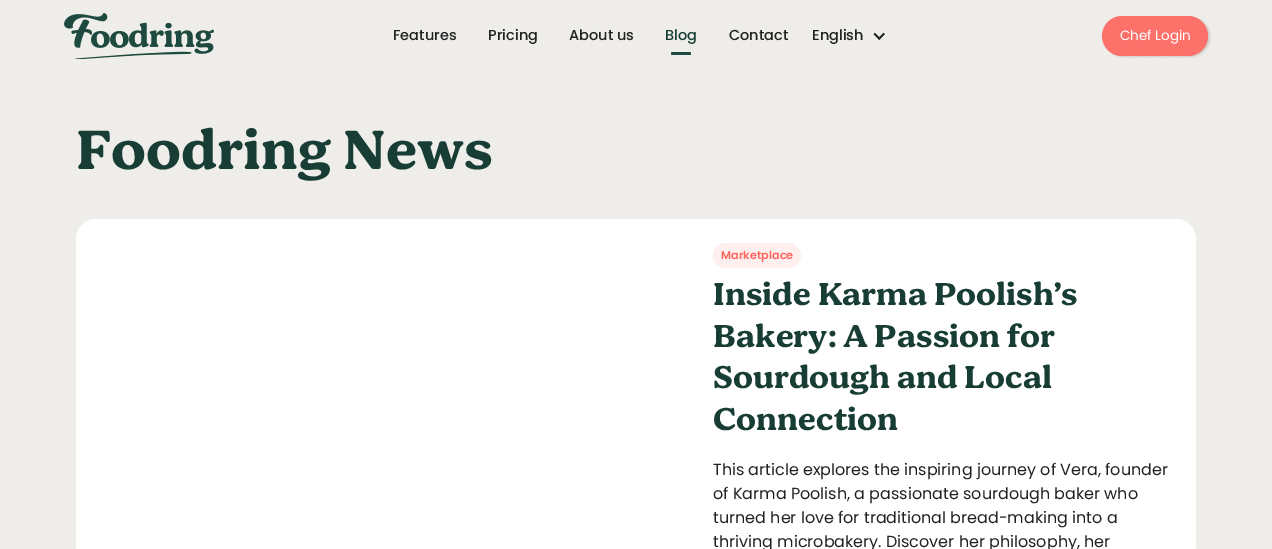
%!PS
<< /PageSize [1272 549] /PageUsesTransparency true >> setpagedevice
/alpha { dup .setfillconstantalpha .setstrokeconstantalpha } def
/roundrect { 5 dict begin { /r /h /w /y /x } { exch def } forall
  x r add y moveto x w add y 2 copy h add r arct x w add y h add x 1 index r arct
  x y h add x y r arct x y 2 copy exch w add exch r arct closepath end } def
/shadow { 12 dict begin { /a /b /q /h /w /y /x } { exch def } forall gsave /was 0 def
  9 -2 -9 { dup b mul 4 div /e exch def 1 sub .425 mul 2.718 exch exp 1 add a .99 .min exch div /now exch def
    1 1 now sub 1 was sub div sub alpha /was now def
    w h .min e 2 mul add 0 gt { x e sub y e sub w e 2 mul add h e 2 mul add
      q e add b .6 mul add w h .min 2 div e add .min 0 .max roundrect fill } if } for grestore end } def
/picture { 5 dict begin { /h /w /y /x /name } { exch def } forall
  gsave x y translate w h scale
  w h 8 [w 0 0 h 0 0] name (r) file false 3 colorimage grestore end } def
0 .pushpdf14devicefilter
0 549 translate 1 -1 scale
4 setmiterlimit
0.992 0.988 0.973 setrgbcolor
0 0 1272 549 rectfill
(img1.rgb) 0 0 1272 549 picture
(img2.rgb) 64 13 150 46 picture
/Poppins-Medium [14.5 0 0 -14.5 0 0] selectfont
0.133 setgray
393 40 moveto (Features) show
488 40 moveto (Pricing) show
569 40 moveto (About us) show
0.094 0.239 0.208 setrgbcolor
665 40 moveto (Blog) show
0.114 0.286 0.247 setrgbcolor
671 52 20 3 1.5 roundrect fill
0.133 setgray
729 40 moveto (Contact) show
812 40 moveto (English) show
(img3.rgb) 873 32 12 9 picture
gsave
newpath 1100 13 moveto 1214 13 lineto 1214 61 lineto 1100 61 lineto closepath 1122 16 moveto 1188 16 lineto 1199 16 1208 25 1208 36 curveto 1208 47 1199 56 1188 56 curveto 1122 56 lineto 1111 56 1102 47 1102 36 curveto 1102 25 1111 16 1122 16 curveto closepath eoclip newpath
0 setgray
1104 17 106 40 20 1 0.14 shadow
grestore
0.9 alpha
0.996 0.392 0.361 setrgbcolor
1102 16 106 40 20 roundrect fill
/Poppins-Regular [13.5 0 0 -13.5 0 0] selectfont
1 alpha
1 setgray
1120 40 moveto (Chef Login) show
/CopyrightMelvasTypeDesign-Bold [56 0 0 -56 0 0] selectfont
0.094 0.239 0.208 setrgbcolor
76 169 moveto (Foodring News) show
1 setgray
76 219 1120 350 20 roundrect fill
1 0.941 0.937 setrgbcolor
713 243 88 25 12.5 roundrect fill
/Poppins-SemiBold [11.25 0 0 -11.25 0 0] selectfont
0.996 0.392 0.361 setrgbcolor
721 259 moveto (Marketplace) show
/CopyrightMelvasTypeDesign-Bold [32 0 0 -32 0 0] selectfont
0.094 0.239 0.208 setrgbcolor
713 305 moveto (Inside Karma Poolish’s) show
713 347 moveto (Bakery: A Passion for) show
713 388 moveto (Sourdough and Local) show
713 430 moveto (Connection) show
/Poppins-Regular [16 0 0 -16 0 0] selectfont
0.133 setgray
713 475 moveto (This article explores the inspiring journey of Vera, founder) show
713 499 moveto (of Karma Poolish, a passionate sourdough baker who) show
713 523 moveto (turned her love for traditional bread-making into a) show
713 547 moveto (thriving microbakery. Discover her philosophy, her) show
.poppdf14devicefilter showpage
